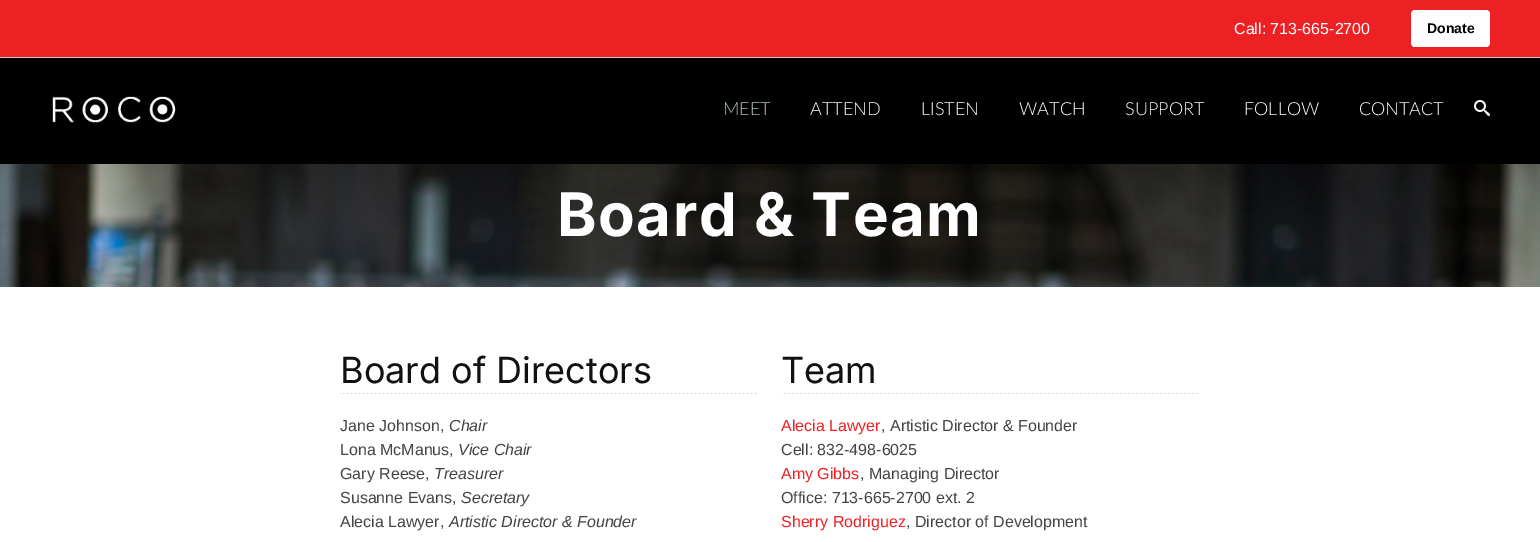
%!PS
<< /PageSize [1540 542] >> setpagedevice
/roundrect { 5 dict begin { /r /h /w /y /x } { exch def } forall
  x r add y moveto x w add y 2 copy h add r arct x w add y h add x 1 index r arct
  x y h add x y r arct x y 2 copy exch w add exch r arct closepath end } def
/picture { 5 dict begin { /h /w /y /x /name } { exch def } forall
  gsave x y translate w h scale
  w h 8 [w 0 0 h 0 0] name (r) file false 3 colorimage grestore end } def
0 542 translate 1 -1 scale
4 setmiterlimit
1 setgray
0 0 1540 542 rectfill
0.929 0.129 0.141 setrgbcolor
0 0 1540 57 rectfill
0.8 setgray
0 57 1540 1 rectfill
/LiberationSans-Regular [16 0 0 -16 0 0] selectfont
1 setgray
1234 34 moveto (Call: 713-665-2700) show
1411 10 79 37 4 roundrect fill
/LiberationSans-Bold [14 0 0 -14 0 0] selectfont
0 setgray
1427 33 moveto (Donate) show
0 58 1540 106 rectfill
(img1.rgb) 52 96 124 27 picture
/Lato-Light [18 0 0 -18 0 0] selectfont
0.694 0.765 0.78 setrgbcolor
723 115 moveto (MEET) show
1 setgray
810 115 moveto (ATTEND) show
921 115 moveto (LISTEN) show
1019 115 moveto (WATCH) show
1125 115 moveto (SUPPORT) show
1244 115 moveto (FOLLOW) show
1359 115 moveto (CONTACT) show
(img2.rgb) 1474 100 16 16 picture
(img3.rgb) 0 164 1540 123 picture
/Inter-Bold [60 0 0 -60 0 0] selectfont
557 236 moveto 1.5 0 (Board & Team) ashow
(img4.rgb) 340 393 417 1 picture
/Inter-Regular [36 0 0 -36 0 0] selectfont
0.067 setgray
340 383 moveto (Board of Directors) show
/LiberationSans-Regular [16 0 0 -16 0 0] selectfont
0.267 setgray
340 431 moveto (Jane Johnson,) show
/LiberationSans-Italic [16 0 0 -16 0 0] selectfont
449 431 moveto (Chair) show
/LiberationSans-Regular [16 0 0 -16 0 0] selectfont
340 455 moveto (Lona McManus,) show
/LiberationSans-Italic [16 0 0 -16 0 0] selectfont
458 455 moveto (Vice Chair) show
/LiberationSans-Regular [16 0 0 -16 0 0] selectfont
340 479 moveto (Gary Reese,) show
/LiberationSans-Italic [16 0 0 -16 0 0] selectfont
434 479 moveto (Treasurer) show
/LiberationSans-Regular [16 0 0 -16 0 0] selectfont
340 503 moveto (Susanne Evans,) show
/LiberationSans-Italic [16 0 0 -16 0 0] selectfont
461 503 moveto (Secretary) show
/LiberationSans-Regular [16 0 0 -16 0 0] selectfont
340 527 moveto (Alecia Lawyer,) show
/LiberationSans-Italic [16 0 0 -16 0 0] selectfont
449 527 moveto (Artistic Director & Founder) show
(img4.rgb) 781 393 417 1 picture
/Inter-Regular [36 0 0 -36 0 0] selectfont
0.067 setgray
781 383 moveto (Team) show
/LiberationSans-Regular [16 0 0 -16 0 0] selectfont
0.929 0.129 0.141 setrgbcolor
781 431 moveto (Alecia Lawyer) show
0.267 setgray
881 431 moveto (, Artistic Director & Founder) show
781 455 moveto (Cell: 832-498-6025) show
0.929 0.129 0.141 setrgbcolor
781 479 moveto (Amy Gibbs) show
0.267 setgray
860 479 moveto (, Managing Director) show
781 503 moveto (Office: 713-665-2700 ext. 2) show
0.929 0.129 0.141 setrgbcolor
781 527 moveto (Sherry Rodriguez) show
0.267 setgray
906 527 moveto (, Director of Development) show
showpage
